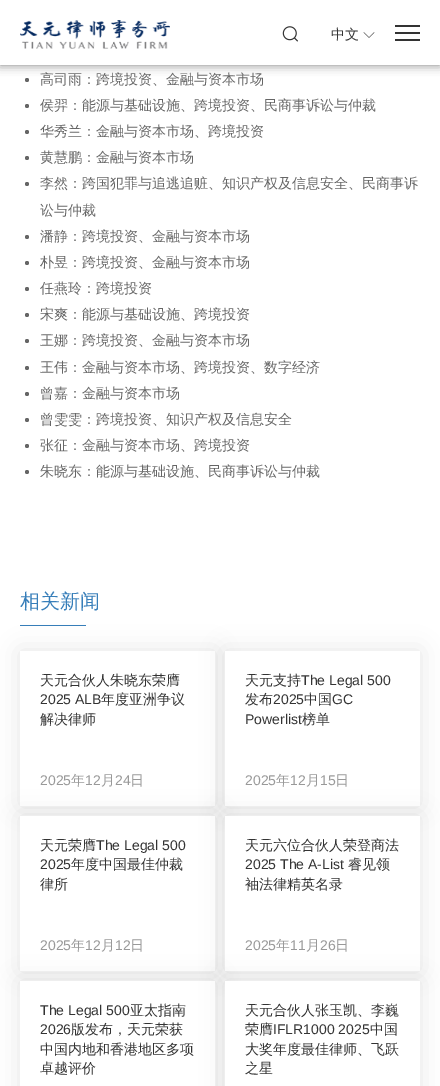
%!PS
<< /PageSize [440 1086] /PageUsesTransparency true >> setpagedevice
/alpha { dup .setfillconstantalpha .setstrokeconstantalpha } def
/roundrect { 5 dict begin { /r /h /w /y /x } { exch def } forall
  x r add y moveto x w add y 2 copy h add r arct x w add y h add x 1 index r arct
  x y h add x y r arct x y 2 copy exch w add exch r arct closepath end } def
/shadow { 12 dict begin { /a /b /q /h /w /y /x } { exch def } forall gsave /was 0 def
  9 -2 -9 { dup b mul 4 div /e exch def 1 sub .425 mul 2.718 exch exp 1 add a .99 .min exch div /now exch def
    1 1 now sub 1 was sub div sub alpha /was now def
    w h .min e 2 mul add 0 gt { x e sub y e sub w e 2 mul add h e 2 mul add
      q e add b .6 mul add w h .min 2 div e add .min 0 .max roundrect fill } if } for grestore end } def
/picture { 5 dict begin { /h /w /y /x /name } { exch def } forall
  gsave x y translate w h scale
  w h 8 [w 0 0 h 0 0] name (r) file false 3 colorimage grestore end } def
0 .pushpdf14devicefilter
0 1086 translate 1 -1 scale
4 setmiterlimit
1 setgray
0 0 440 1086 rectfill
0.4 setgray
newpath 27 80 2 0 360 arc closepath fill
0 setgray
0 0 440 65 0 5 0.5 shadow
1 setgray
0 0 440 65 rectfill
(img1.rgb) 20 20 150 29 picture
(img2.rgb) 282 26 16 16 picture
/WenQuanYiZenHei-Medium [14 0 0 -14 0 0] selectfont
0.2 setgray
331 39 moveto (中文) show
(img3.rgb) 363 32 12 6 picture
395 32 25 2 rectfill
395 25 25 2 rectfill
395 39 25 2 rectfill
0.4 setgray
40 84 moveto (高司雨：跨境投资、金融与资本市场) show
newpath 27 106 2 0 360 arc closepath fill
40 110 moveto (侯羿：能源与基础设施、跨境投资、民商事诉讼与仲裁) show
newpath 27 132 2 0 360 arc closepath fill
40 136 moveto (华秀兰：金融与资本市场、跨境投资) show
newpath 27 158 2 0 360 arc closepath fill
40 162 moveto (黄慧鹏：金融与资本市场) show
newpath 27 184 2 0 360 arc closepath fill
40 188 moveto (李然：跨国犯罪与追逃追赃、知识产权及信息安全、民商事诉) show
40 215 moveto (讼与仲裁) show
newpath 27 237 2 0 360 arc closepath fill
40 241 moveto (潘静：跨境投资、金融与资本市场) show
newpath 27 263 2 0 360 arc closepath fill
40 267 moveto (朴昱：跨境投资、金融与资本市场) show
newpath 27 289 2 0 360 arc closepath fill
40 293 moveto (任燕玲：跨境投资) show
newpath 27 315 2 0 360 arc closepath fill
40 319 moveto (宋爽：能源与基础设施、跨境投资) show
newpath 27 341 2 0 360 arc closepath fill
40 345 moveto (王娜：跨境投资、金融与资本市场) show
newpath 27 368 2 0 360 arc closepath fill
40 372 moveto (王伟：金融与资本市场、跨境投资、数字经济) show
newpath 27 394 2 0 360 arc closepath fill
40 398 moveto (曾嘉：金融与资本市场) show
newpath 27 420 2 0 360 arc closepath fill
40 424 moveto (曾雯雯：跨境投资、知识产权及信息安全) show
newpath 27 446 2 0 360 arc closepath fill
40 450 moveto (张征：金融与资本市场、跨境投资) show
newpath 27 472 2 0 360 arc closepath fill
40 476 moveto (朱晓东：能源与基础设施、民商事诉讼与仲裁) show
/WenQuanYiZenHei-Medium [20 0 0 -20 0 0] selectfont
0.216 0.494 0.725 setrgbcolor
20 608 moveto (相关新闻) show
gsave
newpath 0 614 moveto 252 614 lineto 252 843 lineto 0 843 lineto closepath 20 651 moveto 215 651 lineto 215 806 lineto 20 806 lineto closepath eoclip newpath
0 setgray
20 651 195 155 0 12 0.1 shadow
grestore
20 625 66 1 rectfill
/WenQuanYiZenHei-Medium [14 0 0 -14 0 0] selectfont
0.2 setgray
40 685 moveto (天元合伙人朱晓东荣膺) show
/LiberationSans-Regular [14 0 0 -14 0 0] selectfont
40 704 moveto (2025 ALB) show
/WenQuanYiZenHei-Medium [14 0 0 -14 0 0] selectfont
101 704 moveto (年度亚洲争议) show
40 724 moveto (解决律师) show
/LiberationSans-Regular [14 0 0 -14 0 0] selectfont
0.6 setgray
40 785 moveto (2025) show
/WenQuanYiZenHei-Medium [14 0 0 -14 0 0] selectfont
71 785 moveto (年) show
/LiberationSans-Regular [14 0 0 -14 0 0] selectfont
85 785 moveto (12) show
/WenQuanYiZenHei-Medium [14 0 0 -14 0 0] selectfont
101 785 moveto (月) show
/LiberationSans-Regular [14 0 0 -14 0 0] selectfont
115 785 moveto (24) show
/WenQuanYiZenHei-Medium [14 0 0 -14 0 0] selectfont
130 785 moveto (日) show
0 setgray
225 651 195 155 0 12 0.1 shadow
1 setgray
225 651 195 155 rectfill
0.2 setgray
245 685 moveto (天元支持) show
/LiberationSans-Regular [14 0 0 -14 0 0] selectfont
301 685 moveto (The Legal 500) show
/WenQuanYiZenHei-Medium [14 0 0 -14 0 0] selectfont
245 704 moveto (发布) show
/LiberationSans-Regular [14 0 0 -14 0 0] selectfont
273 704 moveto (2025) show
/WenQuanYiZenHei-Medium [14 0 0 -14 0 0] selectfont
304 704 moveto (中国) show
/LiberationSans-Regular [14 0 0 -14 0 0] selectfont
332 704 moveto (GC) show
245 724 moveto (Powerlist) show
/WenQuanYiZenHei-Medium [14 0 0 -14 0 0] selectfont
302 724 moveto (榜单) show
/LiberationSans-Regular [14 0 0 -14 0 0] selectfont
0.6 setgray
245 785 moveto (2025) show
/WenQuanYiZenHei-Medium [14 0 0 -14 0 0] selectfont
276 785 moveto (年) show
/LiberationSans-Regular [14 0 0 -14 0 0] selectfont
290 785 moveto (12) show
/WenQuanYiZenHei-Medium [14 0 0 -14 0 0] selectfont
306 785 moveto (月) show
/LiberationSans-Regular [14 0 0 -14 0 0] selectfont
320 785 moveto (15) show
/WenQuanYiZenHei-Medium [14 0 0 -14 0 0] selectfont
335 785 moveto (日) show
0 setgray
20 816 195 155 0 12 0.1 shadow
1 setgray
20 816 195 155 rectfill
0.2 setgray
40 850 moveto (天元荣膺) show
/LiberationSans-Regular [14 0 0 -14 0 0] selectfont
96 850 moveto (The Legal 500) show
40 869 moveto (2025) show
/WenQuanYiZenHei-Medium [14 0 0 -14 0 0] selectfont
71 869 moveto (年度中国最佳仲裁) show
40 889 moveto (律所) show
/LiberationSans-Regular [14 0 0 -14 0 0] selectfont
0.6 setgray
40 950 moveto (2025) show
/WenQuanYiZenHei-Medium [14 0 0 -14 0 0] selectfont
71 950 moveto (年) show
/LiberationSans-Regular [14 0 0 -14 0 0] selectfont
85 950 moveto (12) show
/WenQuanYiZenHei-Medium [14 0 0 -14 0 0] selectfont
101 950 moveto (月) show
/LiberationSans-Regular [14 0 0 -14 0 0] selectfont
115 950 moveto (12) show
/WenQuanYiZenHei-Medium [14 0 0 -14 0 0] selectfont
130 950 moveto (日) show
0 setgray
225 816 195 155 0 12 0.1 shadow
1 setgray
225 816 195 155 rectfill
0.2 setgray
245 850 moveto (天元六位合伙人荣登商法) show
/LiberationSans-Regular [14 0 0 -14 0 0] selectfont
245 869 moveto (2025 The A-List) show
/WenQuanYiZenHei-Medium [14 0 0 -14 0 0] selectfont
348 869 moveto (睿见领) show
245 889 moveto (袖法律精英名录) show
/LiberationSans-Regular [14 0 0 -14 0 0] selectfont
0.6 setgray
245 950 moveto (2025) show
/WenQuanYiZenHei-Medium [14 0 0 -14 0 0] selectfont
276 950 moveto (年) show
/LiberationSans-Regular [14 0 0 -14 0 0] selectfont
290 950 moveto (11) show
/WenQuanYiZenHei-Medium [14 0 0 -14 0 0] selectfont
306 950 moveto (月) show
/LiberationSans-Regular [14 0 0 -14 0 0] selectfont
320 950 moveto (26) show
/WenQuanYiZenHei-Medium [14 0 0 -14 0 0] selectfont
335 950 moveto (日) show
0 setgray
20 981 195 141 0 12 0.1 shadow
1 setgray
20 981 195 105 rectfill
/LiberationSans-Regular [14 0 0 -14 0 0] selectfont
0.2 setgray
40 1015 moveto (The Legal 500) show
/WenQuanYiZenHei-Medium [14 0 0 -14 0 0] selectfont
130 1015 moveto (亚太指南) show
/LiberationSans-Regular [14 0 0 -14 0 0] selectfont
40 1034 moveto (2026) show
/WenQuanYiZenHei-Medium [14 0 0 -14 0 0] selectfont
71 1034 moveto (版发布，天元荣获) show
0 setgray
225 981 195 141 0 12 0.1 shadow
0.2 setgray
40 1054 moveto (中国内地和香港地区多项) show
40 1073 moveto (卓越评价) show
1 setgray
225 981 195 105 rectfill
0.2 setgray
245 1015 moveto (天元合伙人张玉凯、李巍) show
245 1034 moveto (荣膺) show
/LiberationSans-Regular [14 0 0 -14 0 0] selectfont
273 1034 moveto (IFLR1000 2025) show
/WenQuanYiZenHei-Medium [14 0 0 -14 0 0] selectfont
370 1034 moveto (中国) show
245 1054 moveto (大奖年度最佳律师、飞跃) show
245 1073 moveto (之星) show
.poppdf14devicefilter showpage
